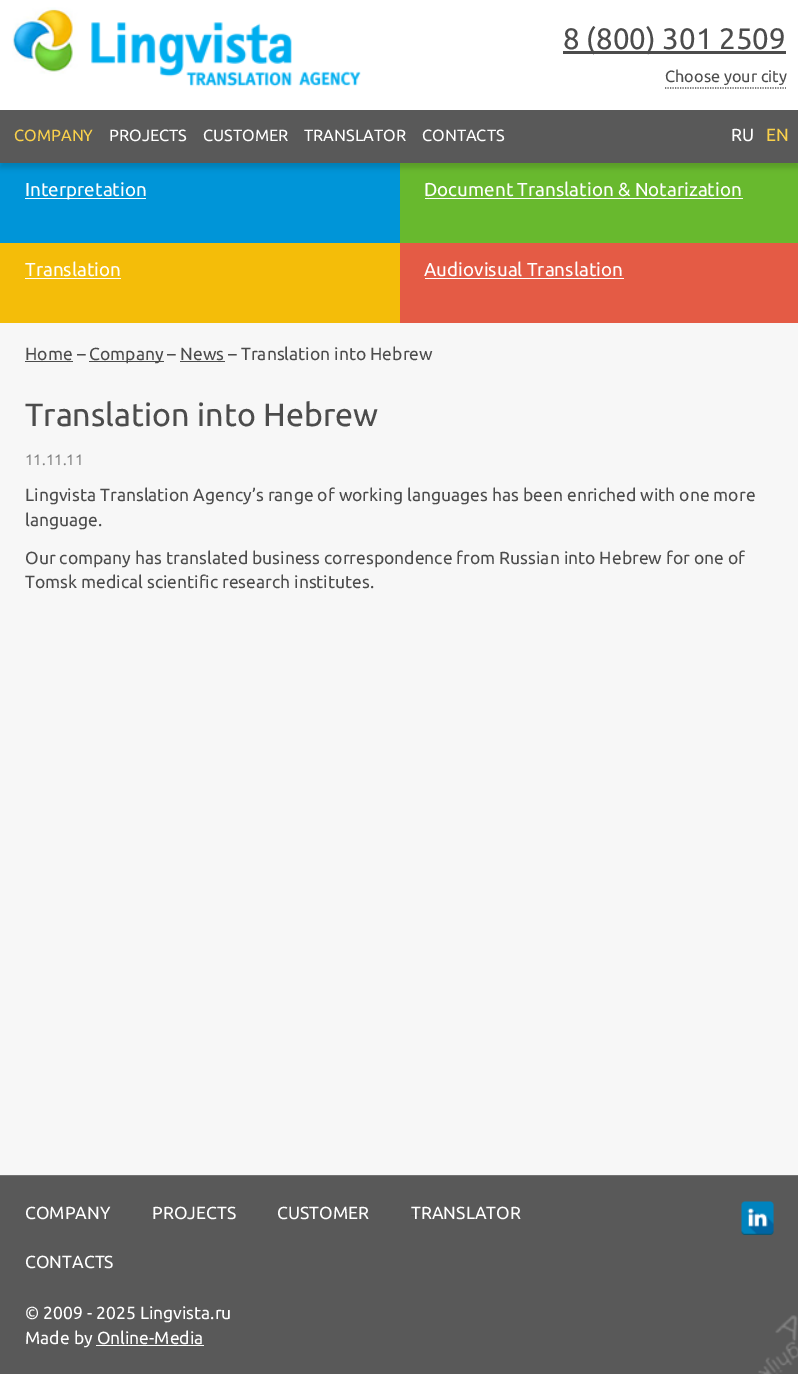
%!PS
<< /PageSize [798 1374] /PageUsesTransparency true >> setpagedevice
/alpha { dup .setfillconstantalpha .setstrokeconstantalpha } def
/roundrect { 5 dict begin { /r /h /w /y /x } { exch def } forall
  x r add y moveto x w add y 2 copy h add r arct x w add y h add x 1 index r arct
  x y h add x y r arct x y 2 copy exch w add exch r arct closepath end } def
/shadow { 12 dict begin { /a /b /q /h /w /y /x } { exch def } forall gsave /was 0 def
  9 -2 -9 { dup b mul 4 div /e exch def 1 sub .425 mul 2.718 exch exp 1 add a .99 .min exch div /now exch def
    1 1 now sub 1 was sub div sub alpha /was now def
    w h .min e 2 mul add 0 gt { x e sub y e sub w e 2 mul add h e 2 mul add
      q e add b .6 mul add w h .min 2 div e add .min 0 .max roundrect fill } if } for grestore end } def
/picture { 5 dict begin { /h /w /y /x /name } { exch def } forall
  gsave x y translate w h scale
  w h 8 [w 0 0 h 0 0] name (r) file false 3 colorimage grestore end } def
0 .pushpdf14devicefilter
0 1374 translate 1 -1 scale
4 setmiterlimit
0.969 setgray
0 0 798 1374 rectfill
0 0.584 0.847 setrgbcolor
0 163 400 80 rectfill
0.408 0.725 0.18 setrgbcolor
400 163 398 80 rectfill
0 setgray
0 115 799 53 0 2.5 0.15 shadow
1 setgray
0 0 798 110 rectfill
(img1.rgb) 12 7 349 80 picture
0.298 setgray
563 51 223 3 rectfill
/Ubuntu-Regular [29.5 0 0 -29.5 0 0] selectfont
563 49 moveto (8 \(800\) 301 2509) show
1.2 setlinewidth
[1.25 1.25] 0 setdash
newpath 665 88 moveto 786 88 lineto stroke
/Ubuntu-Regular [16.25 0 0 -16.25 0 0] selectfont
665 82 moveto (Choose your city) show
0.349 setgray
0 110 798 53 rectfill
0.98 0.82 0.294 setrgbcolor
14 141 moveto (COMPANY) show
1 setgray
109 141 moveto (PROJECTS) show
203 141 moveto (CUSTOMER) show
304 141 moveto (TRANSLATOR) show
422 141 moveto (CONTACTS) show
/Ubuntu-Regular [17.5 0 0 -17.5 0 0] selectfont
731 141 moveto (RU) show
0.98 0.82 0.294 setrgbcolor
766 141 moveto (EN) show
1 setgray
25 198 121 1 rectfill
/Ubuntu-Regular [18.8 0 0 -18.8 0 0] selectfont
25 196 moveto (Interpretation) show
424 196 moveto (Document Translation & Notarization) show
425 198 318 1 rectfill
0.957 0.741 0.035 setrgbcolor
0 243 400 80 rectfill
1 setgray
25 276 moveto (Translation) show
25 278 96 1 rectfill
0.894 0.357 0.271 setrgbcolor
400 243 398 80 rectfill
1 setgray
424 276 moveto (Audiovisual Translation) show
425 278 199 1 rectfill
/Ubuntu-Regular [17.5 0 0 -17.5 0 0] selectfont
0.298 setgray
25 360 moveto (Home –) show
25 361 48 1 rectfill
89 361 75 1 rectfill
89 360 moveto (Company – News – Translation into Hebrew) show
180 361 45 1 rectfill
/Ubuntu-Regular [32.25 0 0 -32.25 0 0] selectfont
25 426 moveto (Translation into Hebrew) show
/Ubuntu-Regular [15 0 0 -15 0 0] selectfont
0.502 setgray
25 465 moveto (11.11.11) show
/Ubuntu-Regular [17.5 0 0 -17.5 0 0] selectfont
0.298 setgray
25 501 moveto (Lingvista Translation Agency’s range of working languages has been enriched with one more) show
25 526 moveto (language.) show
25 564 moveto (Our company has translated business correspondence from Russian into Hebrew for one of) show
25 588 moveto (Tomsk medical scientific research institutes.) show
0.349 setgray
0 1176 798 198 rectfill
0.451 setgray
0 1175 798 1 rectfill
(img2.rgb) 758 1315 40 59 picture
(img3.rgb) 25 1215 9 1 picture
1 setgray
25 1219 moveto (COMPANY) show
(img4.rgb) 151 1215 9 1 picture
152 1219 moveto (PROJECTS) show
(img5.rgb) 277 1215 9 1 picture
277 1219 moveto (CUSTOMER) show
(img4.rgb) 411 1215 9 1 picture
411 1219 moveto (TRANSLATOR) show
(img6.rgb) 25 1264 9 1 picture
25 1268 moveto (CONTACTS) show
(img7.rgb) 741 1201 33 34 picture
25 1319 moveto (© 2009 - 2025 Lingvista.ru) show
25 1344 moveto (Made by Online-Media) show
96 1345 108 1 rectfill
.poppdf14devicefilter showpage
